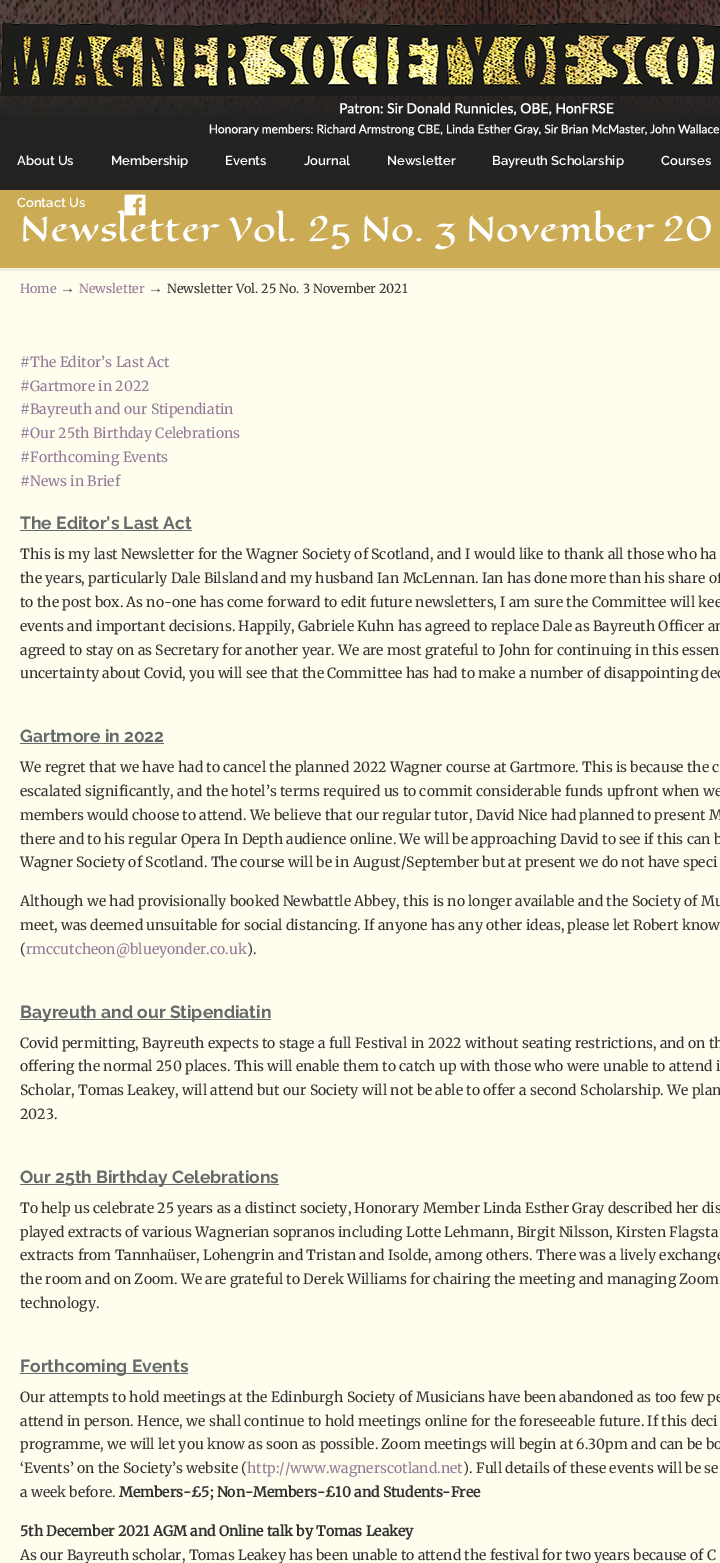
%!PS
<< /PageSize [720 1563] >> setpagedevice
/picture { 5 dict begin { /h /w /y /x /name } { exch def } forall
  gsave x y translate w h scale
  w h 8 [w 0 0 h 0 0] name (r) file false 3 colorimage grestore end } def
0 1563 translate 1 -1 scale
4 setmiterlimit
0.796 0.675 0.333 setrgbcolor
0 0 720 1563 rectfill
0.133 0.133 0.129 setrgbcolor
0 117 720 73 rectfill
(img1.rgb) 0 0 720 117 picture
(img2.rgb) 0 23 720 113 picture
/Raleway-SemiBold [13 0 0 -13 0 0] selectfont
1 setgray
17 165 moveto (About Us) show
111 165 moveto (Membership) show
225 165 moveto (Events) show
304 165 moveto (Journal) show
387 165 moveto (Newsletter) show
492 165 moveto (Bayreuth Scholarship) show
661 165 moveto (Courses) show
17 207 moveto (Contact Us) show
/EagleLake-Regular [32.7 0 0 -32.7 0 0] selectfont
20 241 moveto (Newsletter Vol. 25 No. 3 November 20) show
(img3.rgb) 124 194 22 22 picture
1 0.992 0.929 setrgbcolor
0 271 720 1292 rectfill
0.941 0.933 0.875 setrgbcolor
0 268 720 3 rectfill
/Merriweather-Light [12.6 0 0 -12.6 0 0] selectfont
0.58 0.478 0.6 setrgbcolor
20 293 moveto (Home) show
/LiberationSerif-Regular [15 0 0 -15 0 0] selectfont
0.2 setgray
60 293 moveto (→) show
/Merriweather-Light [12.6 0 0 -12.6 0 0] selectfont
0.58 0.478 0.6 setrgbcolor
79 293 moveto (Newsletter) show
/LiberationSerif-Regular [15 0 0 -15 0 0] selectfont
0.2 setgray
148 293 moveto (→) show
/Merriweather-Light [12.6 0 0 -12.6 0 0] selectfont
167 293 moveto (Newsletter Vol. 25 No. 3 November 2021) show
/Merriweather-Light [14 0 0 -14 0 0] selectfont
0.58 0.478 0.6 setrgbcolor
20 367 moveto (#The Editor’s Last Act) show
20 391 moveto (#Gartmore in 2022) show
20 414 moveto (#Bayreuth and our Stipendiatin) show
20 438 moveto (#Our 25th Birthday Celebrations) show
20 462 moveto (#Forthcoming Events) show
20 486 moveto (#News in Brief) show
/Raleway-Bold [17.5 0 0 -17.5 0 0] selectfont
0.396 0.42 0.42 setrgbcolor
20 529 moveto (The Editor’s Last Act) show
20 530 172 1 rectfill
/Merriweather-Light [14 0 0 -14 0 0] selectfont
0.2 setgray
20 559 moveto (This is my last Newsletter for the Wagner Society of Scotland, and I would like to thank all those who ha) show
20 583 moveto (the years, particularly Dale Bilsland and my husband Ian McLennan. Ian has done more than his share of) show
20 607 moveto (to the post box. As no-one has come forward to edit future newsletters, I am sure the Committee will kee) show
20 631 moveto (events and important decisions. Happily, Gabriele Kuhn has agreed to replace Dale as Bayreuth Officer an) show
20 655 moveto (agreed to stay on as Secretary for another year. We are most grateful to John for continuing in this essen) show
20 678 moveto (uncertainty about Covid, you will see that the Committee has had to make a number of disappointing dec) show
/Raleway-Bold [17.5 0 0 -17.5 0 0] selectfont
0.396 0.42 0.42 setrgbcolor
20 742 moveto (Gartmore in 2022) show
20 743 144 1 rectfill
/Merriweather-Light [14 0 0 -14 0 0] selectfont
0.2 setgray
20 772 moveto (We regret that we have had to cancel the planned 2022 Wagner course at Gartmore. This is because the c) show
20 796 moveto (escalated significantly, and the hotel’s terms required us to commit considerable funds upfront when we) show
20 820 moveto (members would choose to attend. We believe that our regular tutor, David Nice had planned to present M) show
20 844 moveto (there and to his regular Opera In Depth audience online. We will be approaching David to see if this can b) show
20 867 moveto (Wagner Society of Scotland. The course will be in August/September but at present we do not have speci) show
20 906 moveto (Although we had provisionally booked Newbattle Abbey, this is no longer available and the Society of Mu) show
20 930 moveto (meet, was deemed unsuitable for social distancing. If anyone has any other ideas, please let Robert know) show
20 954 moveto (\() show
0.58 0.478 0.6 setrgbcolor
26 954 moveto (rmccutcheon@blueyonder.co.uk) show
0.2 setgray
247 954 moveto (\).) show
0.396 0.42 0.42 setrgbcolor
20 1019 251 1 rectfill
/Raleway-Bold [17.5 0 0 -17.5 0 0] selectfont
20 1018 moveto (Bayreuth and our Stipendiatin) show
/Merriweather-Light [14 0 0 -14 0 0] selectfont
0.2 setgray
20 1048 moveto (Covid permitting, Bayreuth expects to stage a full Festival in 2022 without seating restrictions, and on th) show
20 1071 moveto (offering the normal 250 places. This will enable them to catch up with those who were unable to attend i) show
20 1095 moveto (Scholar, Tomas Leakey, will attend but our Society will not be able to offer a second Scholarship. We plan) show
20 1119 moveto (2023.) show
0.396 0.42 0.42 setrgbcolor
20 1184 259 1 rectfill
/Raleway-Bold [17.5 0 0 -17.5 0 0] selectfont
20 1183 moveto (Our 25th Birthday Celebrations) show
/Merriweather-Light [14 0 0 -14 0 0] selectfont
0.2 setgray
20 1213 moveto (To help us celebrate 25 years as a distinct society, Honorary Member Linda Esther Gray described her dis) show
20 1237 moveto (played extracts of various Wagnerian sopranos including Lotte Lehmann, Birgit Nilsson, Kirsten Flagsta) show
20 1260 moveto (extracts from Tannhaüser, Lohengrin and Tristan and Isolde, among others. There was a lively exchange) show
20 1284 moveto (the room and on Zoom. We are grateful to Derek Williams for chairing the meeting and managing Zoom) show
20 1308 moveto (technology.) show
0.396 0.42 0.42 setrgbcolor
20 1373 168 1 rectfill
/Raleway-Bold [17.5 0 0 -17.5 0 0] selectfont
20 1372 moveto (Forthcoming Events) show
/Merriweather-Light [14 0 0 -14 0 0] selectfont
0.2 setgray
20 1402 moveto (Our attempts to hold meetings at the Edinburgh Society of Musicians have been abandoned as too few pe) show
20 1426 moveto (attend in person. Hence, we shall continue to hold meetings online for the foreseeable future. If this deci) show
20 1449 moveto (programme, we will let you know as soon as possible. Zoom meetings will begin at 6.30pm and can be bo) show
20 1473 moveto (‘Events’ on the Society’s website \() show
0.58 0.478 0.6 setrgbcolor
247 1473 moveto (http://www.wagnerscotland.net) show
0.2 setgray
463 1473 moveto (\). Full details of these events will be se) show
20 1497 moveto (a week before.) show
/Merriweather-Bold [14 0 0 -14 0 0] selectfont
119 1497 moveto (Members-£5; Non-Members-£10 and Students-Free) show
20 1536 moveto (5th December 2021 AGM and Online talk by Tomas Leakey) show
/Merriweather-Light [14 0 0 -14 0 0] selectfont
20 1560 moveto (As our Bayreuth scholar, Tomas Leakey has been unable to attend the festival for two years because of C) show
showpage
